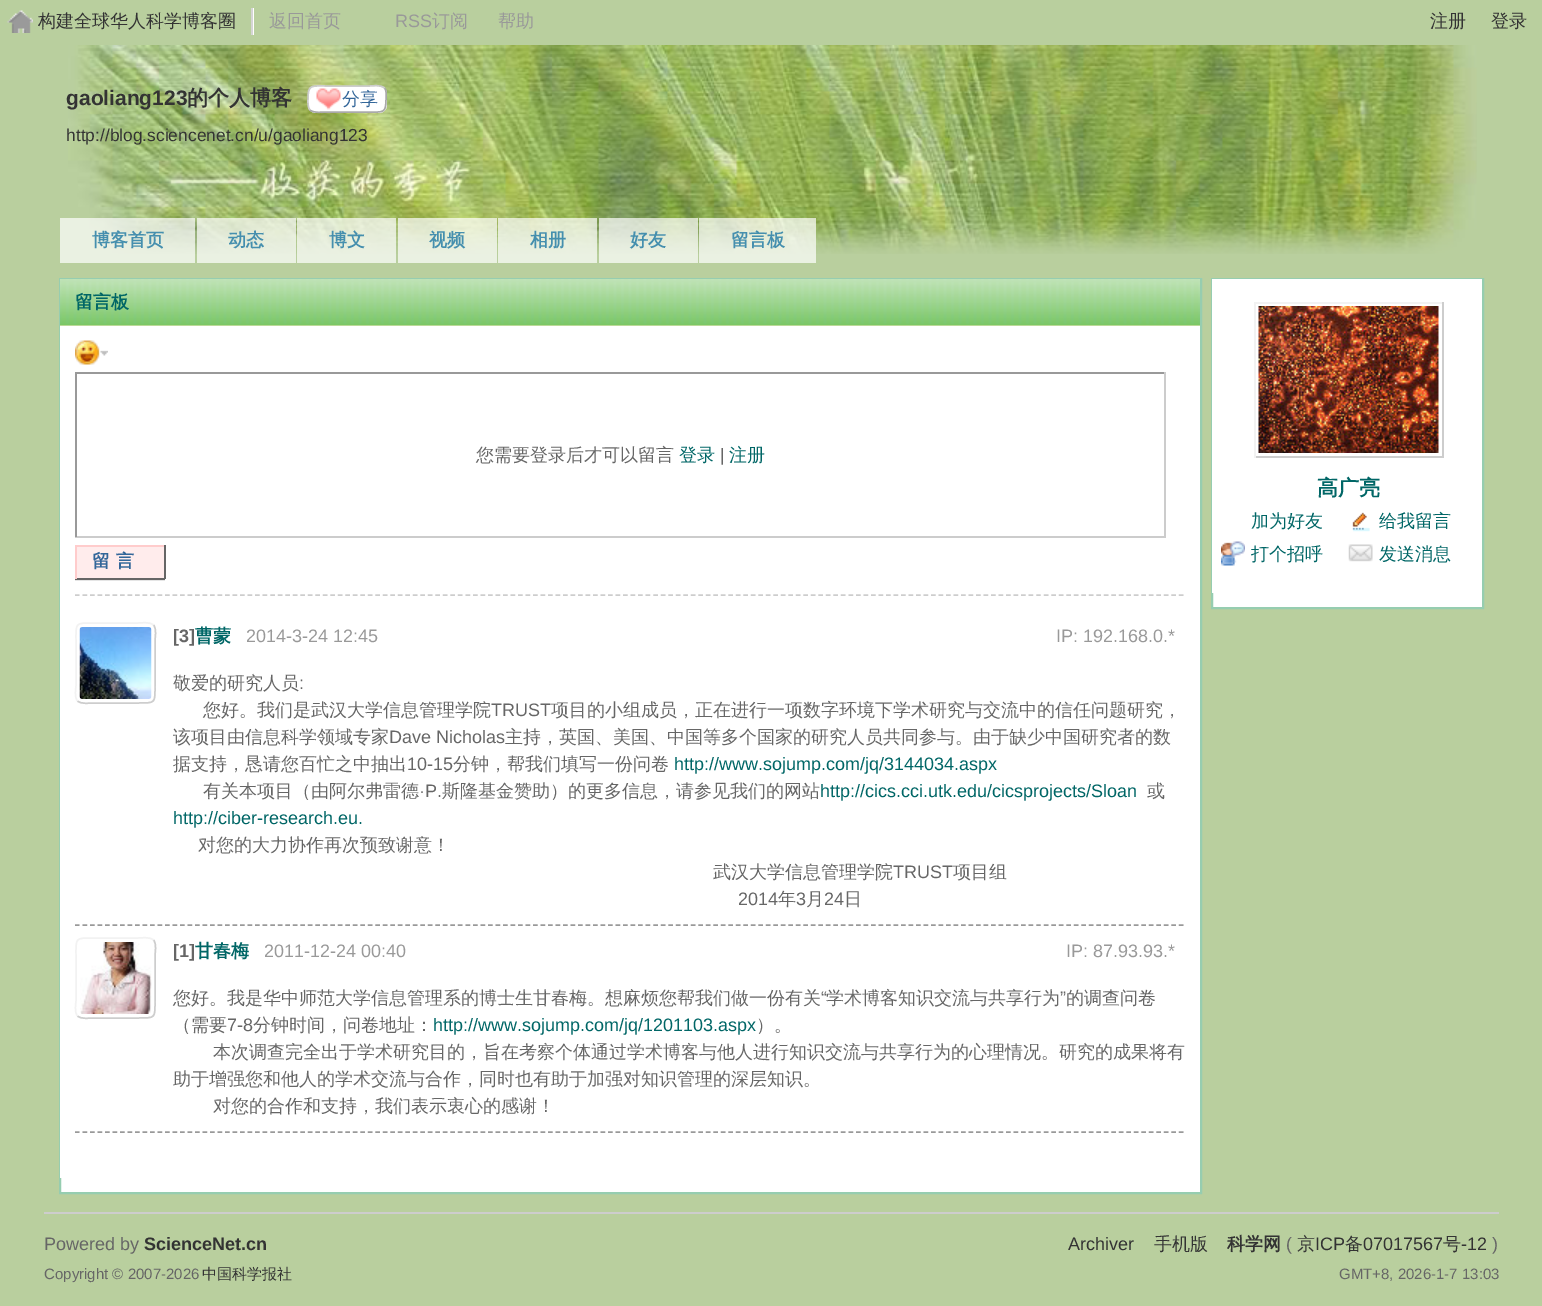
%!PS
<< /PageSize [1542 1306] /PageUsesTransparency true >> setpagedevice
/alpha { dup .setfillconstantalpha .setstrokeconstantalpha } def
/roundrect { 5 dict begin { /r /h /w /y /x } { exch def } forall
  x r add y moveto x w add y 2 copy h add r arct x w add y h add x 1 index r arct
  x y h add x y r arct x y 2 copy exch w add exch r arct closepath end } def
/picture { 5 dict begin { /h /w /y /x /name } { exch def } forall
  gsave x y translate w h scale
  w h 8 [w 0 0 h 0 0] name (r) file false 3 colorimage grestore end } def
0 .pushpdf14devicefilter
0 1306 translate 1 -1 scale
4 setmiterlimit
0.725 0.812 0.62 setrgbcolor
0 0 1542 1306 rectfill
(img1.rgb) 7 10 26 23 picture
1 setgray
253 8 1 27 rectfill
0.835 setgray
251 8 2 27 rectfill
/WenQuanYiZenHei-Medium [18 0 0 -18 0 0] selectfont
0.2 setgray
38 27 moveto (构建全球华人科学博客圈) show
0.6 setgray
269 27 moveto (返回首页) show
/LiberationSans-Regular [18 0 0 -18 0 0] selectfont
395 27 moveto (RSS) show
/WenQuanYiZenHei-Medium [18 0 0 -18 0 0] selectfont
432 27 moveto (订阅) show
498 27 moveto (帮助) show
0.2 setgray
1430 27 moveto (注册) show
1491 27 moveto (登录) show
(img2.rgb) 68 45 1409 209 picture
/LiberationSans-Bold [21 0 0 -21 0 0] selectfont
66 105 moveto (gaoliang123) show
/WenQuanYiZenHei-Bold [21 0 0 -21 0 0] selectfont
187 105 moveto (的个人博客) show
1 setgray
308 86 79 27 8 roundrect fill
(img3.rgb) 316 88 25 22 picture
0.663 setgray
1.5 setlinewidth
newpath 384.5 88 moveto 387 91 386 95.5 386 99 curveto 386 113.5 383.5 112 369 112 curveto 326 112 lineto 322 112 314 113.5 310 110 curveto stroke
0.8 setgray
newpath 310 110 moveto 307.5 107 308 102.5 308 99 curveto 308 84.5 311 86 326 86 curveto 369 86 lineto 372.5 86 380.5 84.5 384.5 88 curveto stroke
/WenQuanYiZenHei-Medium [18 0 0 -18 0 0] selectfont
0.2 0.4 0.6 setrgbcolor
342 105 moveto (分享) show
/LiberationSans-Regular [17.4 0 0 -17.4 0 0] selectfont
0.2 setgray
66 141 moveto (http://blog.sciencenet.cn/u/gaoliang123) show
0.7 alpha
1 setgray
60 218 135 45 rectfill
/WenQuanYiZenHei-Bold [18 0 0 -18 0 0] selectfont
1 alpha
0.271 0.561 0.682 setrgbcolor
92 246 moveto (博客首页) show
0.7 alpha
1 setgray
197 218 99 45 rectfill
1 alpha
0.271 0.561 0.682 setrgbcolor
228 246 moveto (动态) show
0.7 alpha
1 setgray
297 218 99 45 rectfill
1 alpha
0.271 0.561 0.682 setrgbcolor
329 246 moveto (博文) show
0.7 alpha
1 setgray
398 218 99 45 rectfill
1 alpha
0.271 0.561 0.682 setrgbcolor
429 246 moveto (视频) show
0.7 alpha
1 setgray
498 218 99 45 rectfill
1 alpha
0.271 0.561 0.682 setrgbcolor
530 246 moveto (相册) show
0.7 alpha
1 setgray
599 218 99 45 rectfill
1 alpha
0.271 0.561 0.682 setrgbcolor
630 246 moveto (好友) show
0.7 alpha
1 setgray
699 218 117 45 rectfill
1 alpha
0.271 0.561 0.682 setrgbcolor
731 246 moveto (留言板) show
1 setgray
61 1178 1139 14 rectfill
0.588 0.804 0.69 setrgbcolor
2 setlinewidth
60 279 1141 914 rectstroke
1 setgray
60 326 1140 852 rectfill
0.996 0.922 0.792 setrgbcolor
60 325 1140 1 rectfill
(img4.rgb) 60 279 1140 47 picture
0 0.4 0.4 setrgbcolor
75 308 moveto (留言板) show
(img5.rgb) 75 340 33 25 picture
0.6 setgray
75 372 1091 2 rectfill
0.8 setgray
1164 372 2 165 rectfill
75 536 1091 2 rectfill
0.6 setgray
75 372 2 165 rectfill
/WenQuanYiZenHei-Medium [18 0 0 -18 0 0] selectfont
0.4 setgray
476 461 moveto (您需要登录后才可以留言) show
0 0.4 0.4 setrgbcolor
679 461 moveto (登录) show
/LiberationSans-Regular [18 0 0 -18 0 0] selectfont
0.4 setgray
720 461 moveto (|) show
/WenQuanYiZenHei-Medium [18 0 0 -18 0 0] selectfont
0 0.4 0.4 setrgbcolor
729 461 moveto (注册) show
0.898 setgray
75 580 90 1 rectfill
1 0.925 0.925 setrgbcolor
77 547 87 31 rectfill
1 0.8 0.8 setrgbcolor
75 545 90 2 rectfill
0.4 setgray
164 545 2 34 rectfill
75 578 90 2 rectfill
1 0.8 0.8 setrgbcolor
75 545 2 34 rectfill
/WenQuanYiZenHei-Bold [18 0 0 -18 0 0] selectfont
0.2 0.4 0.6 setrgbcolor
92 567 moveto 6 0 (留言) ashow
0.804 setgray
1.5 setlinewidth
[4.5 3.01] 0 setdash
newpath 75 595 moveto 1185 595 lineto stroke
0.6 setgray
newpath 75 925 moveto 1185 925 lineto stroke
0.804 setgray
[] 0 setdash
newpath 153.5 625 moveto 157 629 155 637.5 155 641 curveto 155 685 lineto 155 703.5 156 703 137.5 703 curveto 93.5 703 lineto 90 703 81.5 704.5 77.5 701 curveto stroke
0.949 setgray
newpath 77.5 701 moveto 74 697 76 688.5 76 685 curveto 76 641 lineto 76 622.5 75 623 93.5 623 curveto 137.5 623 lineto 141 623 149.5 621.5 153.5 625 curveto stroke
(img6.rgb) 79 627 73 72 picture
/LiberationSans-Bold [18 0 0 -18 0 0] selectfont
0.4 setgray
173 642 moveto ([3]) show
/WenQuanYiZenHei-Bold [18 0 0 -18 0 0] selectfont
0 0.4 0.4 setrgbcolor
195 642 moveto (曹蒙) show
/LiberationSans-Regular [18 0 0 -18 0 0] selectfont
0.6 setgray
246 642 moveto (2014-3-24 12:45) show
1056 642 moveto (IP: 192.168.0.*) show
/WenQuanYiZenHei-Medium [18 0 0 -18 0 0] selectfont
0.4 setgray
173 689 moveto (敬爱的研究人员) show
/LiberationSans-Regular [18 0 0 -18 0 0] selectfont
299 689 moveto (:) show
/WenQuanYiZenHei-Medium [18 0 0 -18 0 0] selectfont
203 716 moveto (您好。我们是武汉大学信息管理学院) show
/LiberationSans-Regular [18 0 0 -18 0 0] selectfont
491 716 moveto (TRUST) show
/WenQuanYiZenHei-Medium [18 0 0 -18 0 0] selectfont
551 716 moveto (项目的小组成员，正在进行一项数字环境下学术研究与交流中的信任问题研究，) show
173 743 moveto (该项目由信息科学领域专家) show
/LiberationSans-Regular [18 0 0 -18 0 0] selectfont
389 743 moveto (Dave Nicholas) show
/WenQuanYiZenHei-Medium [18 0 0 -18 0 0] selectfont
505 743 moveto (主持，英国、美国、中国等多个国家的研究人员共同参与。由于缺少中国研究者的数) show
173 770 moveto (据支持，恳请您百忙之中抽出) show
/LiberationSans-Regular [18 0 0 -18 0 0] selectfont
407 770 moveto (10-15) show
/WenQuanYiZenHei-Medium [18 0 0 -18 0 0] selectfont
453 770 moveto (分钟，帮我们填写一份问卷) show
/LiberationSans-Regular [18 0 0 -18 0 0] selectfont
0 0.4 0.4 setrgbcolor
674 770 moveto (http://www.sojump.com/jq/3144034.aspx) show
/WenQuanYiZenHei-Medium [18 0 0 -18 0 0] selectfont
0.4 setgray
203 797 moveto (有关本项目（由阿尔弗雷德) show
/LiberationSans-Regular [18 0 0 -18 0 0] selectfont
419 797 moveto (·P.) show
/WenQuanYiZenHei-Medium [18 0 0 -18 0 0] selectfont
442 797 moveto (斯隆基金赞助）的更多信息，请参见我们的网站) show
/LiberationSans-Regular [18 0 0 -18 0 0] selectfont
0 0.4 0.4 setrgbcolor
820 797 moveto (http://cics.cci.utk.edu/cicsprojects/Sloan) show
/WenQuanYiZenHei-Medium [18 0 0 -18 0 0] selectfont
0.4 setgray
1147 797 moveto (或) show
/LiberationSans-Regular [18 0 0 -18 0 0] selectfont
0 0.4 0.4 setrgbcolor
173 824 moveto (http://ciber-research.eu.) show
/WenQuanYiZenHei-Medium [18 0 0 -18 0 0] selectfont
0.4 setgray
198 851 moveto (对您的大力协作再次预致谢意！) show
713 878 moveto (武汉大学信息管理学院) show
/LiberationSans-Regular [18 0 0 -18 0 0] selectfont
893 878 moveto (TRUST) show
/WenQuanYiZenHei-Medium [18 0 0 -18 0 0] selectfont
953 878 moveto (项目组) show
/LiberationSans-Regular [18 0 0 -18 0 0] selectfont
738 905 moveto (2014) show
/WenQuanYiZenHei-Medium [18 0 0 -18 0 0] selectfont
778 905 moveto (年) show
/LiberationSans-Regular [18 0 0 -18 0 0] selectfont
796 905 moveto (3) show
/WenQuanYiZenHei-Medium [18 0 0 -18 0 0] selectfont
806 905 moveto (月) show
/LiberationSans-Regular [18 0 0 -18 0 0] selectfont
824 905 moveto (24) show
/WenQuanYiZenHei-Medium [18 0 0 -18 0 0] selectfont
844 905 moveto (日) show
0.6 setgray
[4.5 3.01] 0 setdash
newpath 75 1132 moveto 1185 1132 lineto stroke
0.804 setgray
[] 0 setdash
newpath 153.5 940 moveto 157 944 155 952.5 155 956 curveto 155 1000 lineto 155 1018.5 156 1018 137.5 1018 curveto 93.5 1018 lineto 90 1018 81.5 1019.5 77.5 1016 curveto stroke
0.949 setgray
newpath 77.5 1016 moveto 74 1012 76 1003.5 76 1000 curveto 76 956 lineto 76 937.5 75 938 93.5 938 curveto 137.5 938 lineto 141 938 149.5 936.5 153.5 940 curveto stroke
(img7.rgb) 80 942 72 72 picture
/LiberationSans-Bold [18 0 0 -18 0 0] selectfont
0.4 setgray
173 957 moveto ([1]) show
/WenQuanYiZenHei-Bold [18 0 0 -18 0 0] selectfont
0 0.4 0.4 setrgbcolor
195 957 moveto (甘春梅) show
/LiberationSans-Regular [18 0 0 -18 0 0] selectfont
0.6 setgray
264 957 moveto (2011-12-24 00:40) show
1066 957 moveto (IP: 87.93.93.*) show
/WenQuanYiZenHei-Medium [18 0 0 -18 0 0] selectfont
0.4 setgray
173 1004 moveto (您好。我是华中师范大学信息管理系的博士生甘春梅。想麻烦您帮我们做一份有关) show
/LiberationSans-Regular [18 0 0 -18 0 0] selectfont
821 1004 moveto (“) show
/WenQuanYiZenHei-Medium [18 0 0 -18 0 0] selectfont
826 1004 moveto (学术博客知识交流与共享行为) show
/LiberationSans-Regular [18 0 0 -18 0 0] selectfont
1060 1004 moveto (”) show
/WenQuanYiZenHei-Medium [18 0 0 -18 0 0] selectfont
1066 1004 moveto (的调查问卷) show
173 1031 moveto (（需要) show
/LiberationSans-Regular [18 0 0 -18 0 0] selectfont
227 1031 moveto (7-8) show
/WenQuanYiZenHei-Medium [18 0 0 -18 0 0] selectfont
253 1031 moveto (分钟时间，问卷地址：) show
/LiberationSans-Regular [18 0 0 -18 0 0] selectfont
0 0.4 0.4 setrgbcolor
433 1031 moveto (http://www.sojump.com/jq/1201103.aspx) show
/WenQuanYiZenHei-Medium [18 0 0 -18 0 0] selectfont
0.4 setgray
756 1031 moveto (）。) show
213 1058 moveto (本次调查完全出于学术研究目的，旨在考察个体通过学术博客与他人进行知识交流与共享行为的心理情况。研究的成果将有) show
173 1085 moveto (助于增强您和他人的学术交流与合作，同时也有助于加强对知识管理的深层知识。) show
213 1112 moveto (对您的合作和支持，我们表示衷心的感谢！) show
1 setgray
1213 593 269 14 rectfill
0.588 0.804 0.69 setrgbcolor
2 setlinewidth
1212 279 271 329 rectstroke
1 setgray
1212 279 270 314 rectfill
0.949 setgray
1254 302 189 2 rectfill
0.804 setgray
1442 302 2 156 rectfill
1254 456 189 2 rectfill
0.949 setgray
1254 302 2 156 rectfill
(img8.rgb) 1258 306 181 147 picture
/WenQuanYiZenHei-Bold [21 0 0 -21 0 0] selectfont
0 0.4 0.4 setrgbcolor
1317 495 moveto (高广亮) show
/WenQuanYiZenHei-Medium [18 0 0 -18 0 0] selectfont
1251 527 moveto (加为好友) show
(img9.rgb) 1352 512 18 20 picture
1379 527 moveto (给我留言) show
(img10.rgb) 1221 541 24 25 picture
1251 560 moveto (打个招呼) show
(img11.rgb) 1348 544 25 18 picture
1379 560 moveto (发送消息) show
0.804 setgray
44 1212 1455 2 rectfill
/LiberationSans-Regular [18 0 0 -18 0 0] selectfont
0.4 setgray
44 1250 moveto (Powered by) show
/LiberationSans-Bold [18 0 0 -18 0 0] selectfont
0.2 setgray
144 1250 moveto (ScienceNet.cn) show
/LiberationSans-Regular [15 0 0 -15 0 0] selectfont
0.4 setgray
44 1279 moveto (Copyright © 2007-2026) show
/WenQuanYiZenHei-Medium [15 0 0 -15 0 0] selectfont
0.2 setgray
202 1279 moveto (中国科学报社) show
/LiberationSans-Regular [18 0 0 -18 0 0] selectfont
1068 1250 moveto (Archiver) show
/WenQuanYiZenHei-Medium [18 0 0 -18 0 0] selectfont
1154 1250 moveto (手机版) show
/WenQuanYiZenHei-Bold [18 0 0 -18 0 0] selectfont
1227 1250 moveto (科学网) show
/LiberationSans-Regular [18 0 0 -18 0 0] selectfont
0.4 setgray
1286 1250 moveto (\() show
/WenQuanYiZenHei-Medium [18 0 0 -18 0 0] selectfont
0.2 setgray
1297 1250 moveto (京) show
/LiberationSans-Regular [18 0 0 -18 0 0] selectfont
1315 1250 moveto (ICP) show
/WenQuanYiZenHei-Medium [18 0 0 -18 0 0] selectfont
1345 1250 moveto (备) show
/LiberationSans-Regular [18 0 0 -18 0 0] selectfont
1363 1250 moveto (07017567) show
/WenQuanYiZenHei-Medium [18 0 0 -18 0 0] selectfont
1443 1250 moveto (号) show
/LiberationSans-Regular [18 0 0 -18 0 0] selectfont
1461 1250 moveto (-12) show
0.4 setgray
1492 1250 moveto (\)) show
/LiberationSans-Regular [15 0 0 -15 0 0] selectfont
1339 1279 moveto (GMT+8, 2026-1-7 13:03) show
.poppdf14devicefilter showpage
